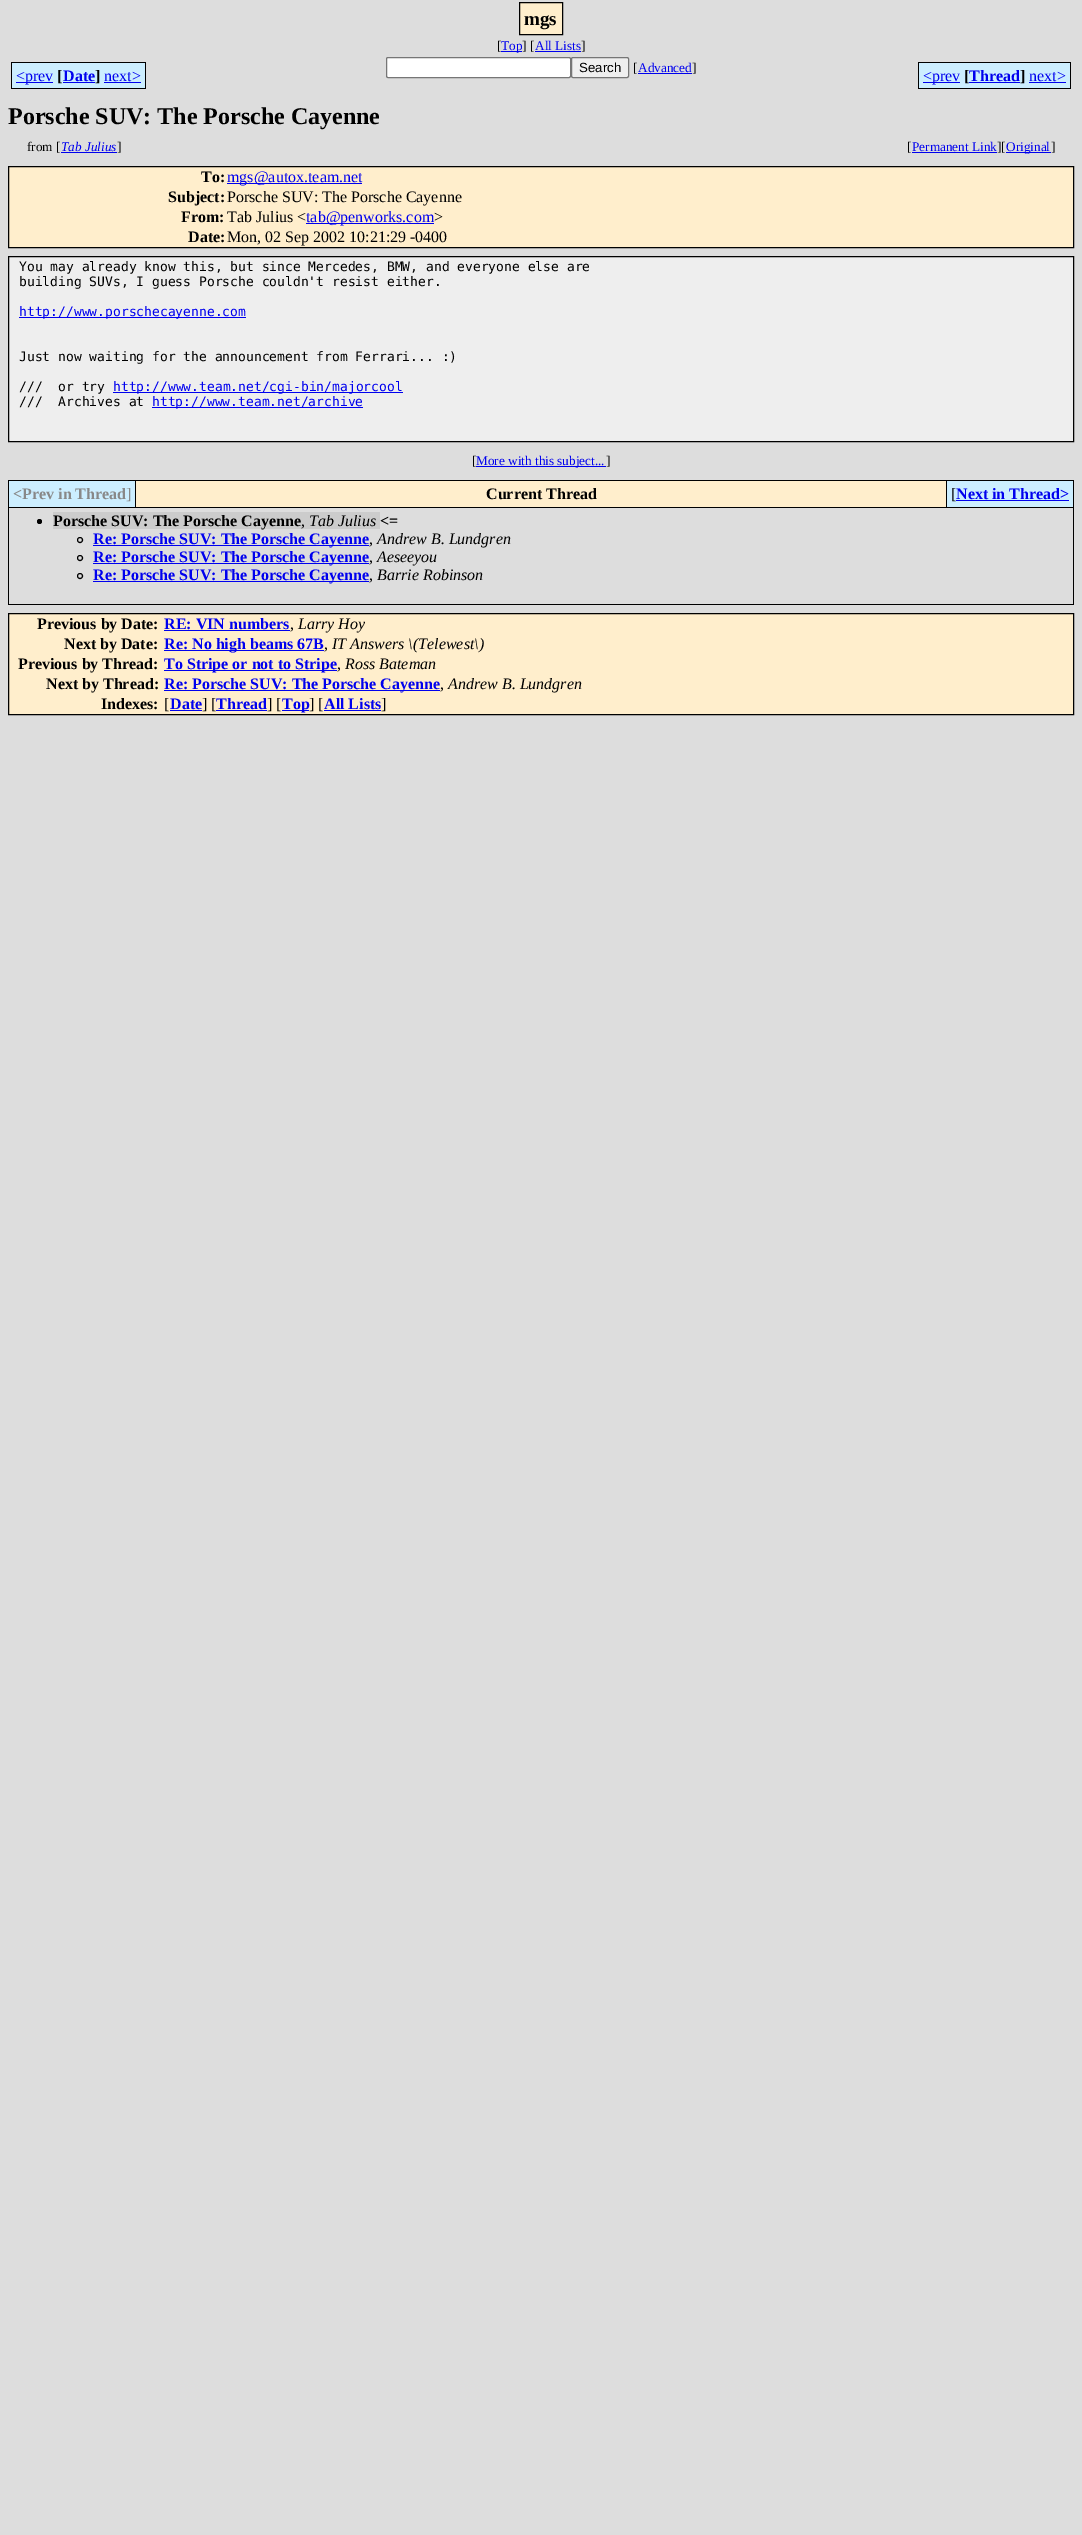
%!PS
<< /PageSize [1082 2535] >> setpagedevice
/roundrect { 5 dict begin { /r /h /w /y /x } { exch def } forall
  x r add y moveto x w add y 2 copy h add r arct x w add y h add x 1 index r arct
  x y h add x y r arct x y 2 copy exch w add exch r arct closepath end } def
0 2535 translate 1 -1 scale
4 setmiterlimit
0.867 setgray
0 0 1082 2535 rectfill
1 0.933 0.8 setrgbcolor
newpath 519.5 2.5 moveto 562.5 2.5 lineto 562.5 34.5 lineto 519.5 34.5 lineto closepath gsave fill grestore
0 setgray
stroke
/LiberationSerif-Bold [19 0 0 -19 0 0] selectfont
524 25 moveto (mgs) show
/LiberationSerif-Regular [13.25 0 0 -13.25 0 0] selectfont
497 50 moveto ([) show
0 0 0.933 setrgbcolor
501 51 21 1 rectfill
501 50 moveto (Top) show
0 setgray
522 50 moveto (] [) show
0 0 0.933 setrgbcolor
535 50 moveto (All Lists) show
0 setgray
581 50 moveto (]) show
0 0 0.933 setrgbcolor
535 51 46 1 rectfill
0.8 0.933 1 setrgbcolor
12 63 41 25 rectfill
0 0 0.933 setrgbcolor
16 82 37 1 rectfill
0.8 0.933 1 setrgbcolor
53 62 10 27 rectfill
/LiberationSerif-Regular [16 0 0 -16 0 0] selectfont
0 0 0.933 setrgbcolor
16 81 moveto (<prev) show
0 setgray
11 62 42 1 rectfill
11 88 42 1 rectfill
11 62 1 27 rectfill
53 88 42 1 rectfill
/LiberationSerif-Bold [16 0 0 -16 0 0] selectfont
57 81 moveto ([) show
0.8 0.933 1 setrgbcolor
63 63 32 25 rectfill
0 0 0.933 setrgbcolor
63 82 32 1 rectfill
63 81 moveto (Date) show
0 setgray
53 62 42 1 rectfill
0.8 0.933 1 setrgbcolor
95 62 9 27 rectfill
0 setgray
95 62 51 1 rectfill
95 81 moveto (]) show
95 88 9 1 rectfill
0.8 0.933 1 setrgbcolor
104 63 41 25 rectfill
/LiberationSerif-Regular [16 0 0 -16 0 0] selectfont
0 0 0.933 setrgbcolor
104 81 moveto (next>) show
0 setgray
145 62 1 27 rectfill
104 88 42 1 rectfill
0 0 0.933 setrgbcolor
104 82 37 1 rectfill
1 setgray
386.5 57.5 184 20 1.5 roundrect gsave fill grestore
0.463 setgray
stroke
0.937 setgray
571.5 57.5 57 20 1.5 roundrect gsave fill grestore
0.463 setgray
stroke
/LiberationSans-Regular [13.25 0 0 -13.25 0 0] selectfont
0 setgray
579 72 moveto (Search) show
/LiberationSerif-Regular [13.25 0 0 -13.25 0 0] selectfont
633 72 moveto ([) show
0 0 0.933 setrgbcolor
638 73 54 1 rectfill
638 72 moveto (Advanced) show
0 setgray
692 72 moveto (]) show
0.8 0.933 1 setrgbcolor
919 63 41 25 rectfill
0 0 0.933 setrgbcolor
923 82 37 1 rectfill
0.8 0.933 1 setrgbcolor
960 62 9 27 rectfill
/LiberationSerif-Regular [16 0 0 -16 0 0] selectfont
0 0 0.933 setrgbcolor
923 81 moveto (<prev) show
0 setgray
918 62 42 1 rectfill
918 88 42 1 rectfill
918 62 1 27 rectfill
960 88 60 1 rectfill
/LiberationSerif-Bold [16 0 0 -16 0 0] selectfont
964 81 moveto ([) show
0.8 0.933 1 setrgbcolor
969 63 51 25 rectfill
0 0 0.933 setrgbcolor
969 82 51 1 rectfill
969 81 moveto (Thread) show
0 setgray
960 62 60 1 rectfill
0.8 0.933 1 setrgbcolor
1020 62 9 27 rectfill
0 setgray
1020 62 51 1 rectfill
1020 81 moveto (]) show
1020 88 9 1 rectfill
0.8 0.933 1 setrgbcolor
1029 63 41 25 rectfill
/LiberationSerif-Regular [16 0 0 -16 0 0] selectfont
0 0 0.933 setrgbcolor
1029 81 moveto (next>) show
0 setgray
1070 62 1 27 rectfill
1029 88 42 1 rectfill
0 0 0.933 setrgbcolor
1029 82 37 1 rectfill
/LiberationSerif-Bold [24 0 0 -24 0 0] selectfont
0 setgray
8 124 moveto (Porsche SUV: The Porsche Cayenne) show
/LiberationSerif-Regular [13.25 0 0 -13.25 0 0] selectfont
27 151 moveto (from [) show
0 0 0.933 setrgbcolor
61 152 56 1 rectfill
/LiberationSerif-Italic [13.25 0 0 -13.25 0 0] selectfont
61 151 moveto (Tab Julius) show
/LiberationSerif-Regular [13.25 0 0 -13.25 0 0] selectfont
0 setgray
117 151 moveto (]) show
907 151 moveto ([) show
0 0 0.933 setrgbcolor
912 152 85 1 rectfill
912 151 moveto (Permanent Link) show
0 setgray
997 151 moveto (][) show
0 0 0.933 setrgbcolor
1006 152 45 1 rectfill
1006 151 moveto (Original) show
0 setgray
1051 151 moveto (]) show
1 0.933 0.8 setrgbcolor
newpath 8.5 166.5 moveto 1073.5 166.5 lineto 1073.5 247.5 lineto 8.5 247.5 lineto closepath gsave fill grestore
0 setgray
stroke
/LiberationSerif-Bold [16 0 0 -16 0 0] selectfont
201 182 moveto (To:) show
0 0 0.933 setrgbcolor
227 183 135 1 rectfill
/LiberationSerif-Regular [16 0 0 -16 0 0] selectfont
227 182 moveto (mgs@autox.team.net) show
/LiberationSerif-Bold [16 0 0 -16 0 0] selectfont
0 setgray
168 202 moveto (Subject:) show
/LiberationSerif-Regular [16 0 0 -16 0 0] selectfont
227 202 moveto (Porsche SUV: The Porsche Cayenne) show
/LiberationSerif-Bold [16 0 0 -16 0 0] selectfont
181 222 moveto (From:) show
/LiberationSerif-Regular [16 0 0 -16 0 0] selectfont
227 222 moveto (Tab Julius <) show
0 0 0.933 setrgbcolor
306 223 128 1 rectfill
306 222 moveto (tab@penworks.com) show
0 setgray
434 222 moveto (>) show
/LiberationSerif-Bold [16 0 0 -16 0 0] selectfont
188 242 moveto (Date:) show
/LiberationSerif-Regular [16 0 0 -16 0 0] selectfont
227 242 moveto (Mon, 02 Sep 2002 10:21:29 -0400) show
0.933 setgray
newpath 8.5 256.5 moveto 1073.5 256.5 lineto 1073.5 441.5 lineto 8.5 441.5 lineto closepath gsave fill grestore
0 setgray
stroke
/DejaVuSansMono-Regular [13 0 0 -13 0 0] selectfont
19 271 moveto (You may already know this, but since Mercedes, BMW, and everyone else are) show
19 286 moveto (building SUVs, I guess Porsche couldn't resist either.) show
0 0 0.933 setrgbcolor
19 317 227 1 rectfill
19 316 moveto (http://www.porschecayenne.com) show
0 setgray
19 361 moveto (Just now waiting for the announcement from Ferrari... :\)) show
19 391 moveto (///  or try) show
0 0 0.933 setrgbcolor
113 392 290 1 rectfill
113 391 moveto (http://www.team.net/cgi-bin/majorcool) show
0 setgray
19 406 moveto (///  Archives at) show
0 0 0.933 setrgbcolor
152 407 211 1 rectfill
152 406 moveto (http://www.team.net/archive) show
/LiberationSerif-Regular [13.25 0 0 -13.25 0 0] selectfont
0 setgray
472 465 moveto ([) show
0 0 0.933 setrgbcolor
476 466 130 1 rectfill
476 465 moveto (More with this subject...) show
0 setgray
606 465 moveto (]) show
8 480 1066 125 rectfill
0.8 0.933 1 setrgbcolor
9 481 126 26 rectfill
/LiberationSerif-Bold [16 0 0 -16 0 0] selectfont
0.533 setgray
13 499 moveto (<Prev in Thread) show
/LiberationSerif-Regular [16 0 0 -16 0 0] selectfont
126 499 moveto (]) show
1 0.933 0.8 setrgbcolor
136 481 810 26 rectfill
/LiberationSerif-Bold [16 0 0 -16 0 0] selectfont
0 setgray
486 499 moveto (Current Thread) show
0.8 0.933 1 setrgbcolor
947 481 126 26 rectfill
/LiberationSerif-Regular [16 0 0 -16 0 0] selectfont
0 setgray
951 499 moveto ([) show
/LiberationSerif-Bold [16 0 0 -16 0 0] selectfont
0 0 0.933 setrgbcolor
956 499 moveto (Next in Thread>) show
956 500 113 1 rectfill
0.867 setgray
9 508 1064 96 rectfill
0 setgray
newpath 39.5 521.5 2.5 0 360 arc closepath fill
0.8 setgray
53 512 327 17 rectfill
0 setgray
53 526 moveto (Porsche SUV: The Porsche Cayenne) show
/LiberationSerif-Italic [16 0 0 -16 0 0] selectfont
309 526 moveto (Tab Julius) show
/LiberationSerif-Bold [16 0 0 -16 0 0] selectfont
380 526 moveto (<=) show
/LiberationSerif-Regular [16 0 0 -16 0 0] selectfont
301 526 moveto (,) show
newpath 80 540 2.5 0 360 arc closepath stroke
0 0 0.933 setrgbcolor
93 545 276 1 rectfill
/LiberationSerif-Bold [16 0 0 -16 0 0] selectfont
93 544 moveto (Re: Porsche SUV: The Porsche Cayenne) show
/LiberationSerif-Italic [16 0 0 -16 0 0] selectfont
0 setgray
377 544 moveto (Andrew B. Lundgren) show
/LiberationSerif-Regular [16 0 0 -16 0 0] selectfont
369 544 moveto (,) show
newpath 80 558 2.5 0 360 arc closepath stroke
0 0 0.933 setrgbcolor
93 563 276 1 rectfill
/LiberationSerif-Bold [16 0 0 -16 0 0] selectfont
93 562 moveto (Re: Porsche SUV: The Porsche Cayenne) show
/LiberationSerif-Italic [16 0 0 -16 0 0] selectfont
0 setgray
377 562 moveto (Aeseeyou) show
/LiberationSerif-Regular [16 0 0 -16 0 0] selectfont
369 562 moveto (,) show
newpath 80 576 2.5 0 360 arc closepath stroke
0 0 0.933 setrgbcolor
93 581 276 1 rectfill
/LiberationSerif-Bold [16 0 0 -16 0 0] selectfont
93 580 moveto (Re: Porsche SUV: The Porsche Cayenne) show
/LiberationSerif-Italic [16 0 0 -16 0 0] selectfont
0 setgray
377 580 moveto (Barrie Robinson) show
/LiberationSerif-Regular [16 0 0 -16 0 0] selectfont
369 580 moveto (,) show
1 0.933 0.8 setrgbcolor
newpath 8.5 613.5 moveto 1073.5 613.5 lineto 1073.5 714.5 lineto 8.5 714.5 lineto closepath gsave fill grestore
0 setgray
stroke
/LiberationSerif-Bold [16 0 0 -16 0 0] selectfont
37 629 moveto (Previous by Date:) show
0 0 0.933 setrgbcolor
164 629 moveto (RE: VIN numbers) show
164 630 126 1 rectfill
/LiberationSerif-Regular [16 0 0 -16 0 0] selectfont
0 setgray
290 629 moveto (,) show
/LiberationSerif-Italic [16 0 0 -16 0 0] selectfont
298 629 moveto (Larry Hoy) show
/LiberationSerif-Bold [16 0 0 -16 0 0] selectfont
64 649 moveto (Next by Date:) show
0 0 0.933 setrgbcolor
164 650 160 1 rectfill
164 649 moveto (Re: No high beams 67B) show
/LiberationSerif-Regular [16 0 0 -16 0 0] selectfont
0 setgray
324 649 moveto (,) show
/LiberationSerif-Italic [16 0 0 -16 0 0] selectfont
332 649 moveto (IT Answers \\\(Telewest\\\)) show
/LiberationSerif-Bold [16 0 0 -16 0 0] selectfont
18 669 moveto (Previous by Thread:) show
0 0 0.933 setrgbcolor
164 670 173 1 rectfill
164 669 moveto (To Stripe or not to Stripe) show
/LiberationSerif-Regular [16 0 0 -16 0 0] selectfont
0 setgray
337 669 moveto (,) show
/LiberationSerif-Italic [16 0 0 -16 0 0] selectfont
345 669 moveto (Ross Bateman) show
/LiberationSerif-Bold [16 0 0 -16 0 0] selectfont
46 689 moveto (Next by Thread:) show
0 0 0.933 setrgbcolor
164 690 276 1 rectfill
164 689 moveto (Re: Porsche SUV: The Porsche Cayenne) show
/LiberationSerif-Regular [16 0 0 -16 0 0] selectfont
0 setgray
440 689 moveto (,) show
/LiberationSerif-Italic [16 0 0 -16 0 0] selectfont
448 689 moveto (Andrew B. Lundgren) show
/LiberationSerif-Bold [16 0 0 -16 0 0] selectfont
101 709 moveto (Indexes:) show
/LiberationSerif-Regular [16 0 0 -16 0 0] selectfont
164 709 moveto ([) show
/LiberationSerif-Bold [16 0 0 -16 0 0] selectfont
0 0 0.933 setrgbcolor
170 709 moveto (Date) show
170 710 32 1 rectfill
/LiberationSerif-Regular [16 0 0 -16 0 0] selectfont
0 setgray
202 709 moveto (] [) show
/LiberationSerif-Bold [16 0 0 -16 0 0] selectfont
0 0 0.933 setrgbcolor
216 709 moveto (Thread) show
216 710 51 1 rectfill
/LiberationSerif-Regular [16 0 0 -16 0 0] selectfont
0 setgray
267 709 moveto (] [) show
0 0 0.933 setrgbcolor
282 710 27 1 rectfill
/LiberationSerif-Bold [16 0 0 -16 0 0] selectfont
282 709 moveto (Top) show
/LiberationSerif-Regular [16 0 0 -16 0 0] selectfont
0 setgray
309 709 moveto (] [) show
/LiberationSerif-Bold [16 0 0 -16 0 0] selectfont
0 0 0.933 setrgbcolor
324 709 moveto (All Lists) show
324 710 57 1 rectfill
/LiberationSerif-Regular [16 0 0 -16 0 0] selectfont
0 setgray
381 709 moveto (]) show
showpage
